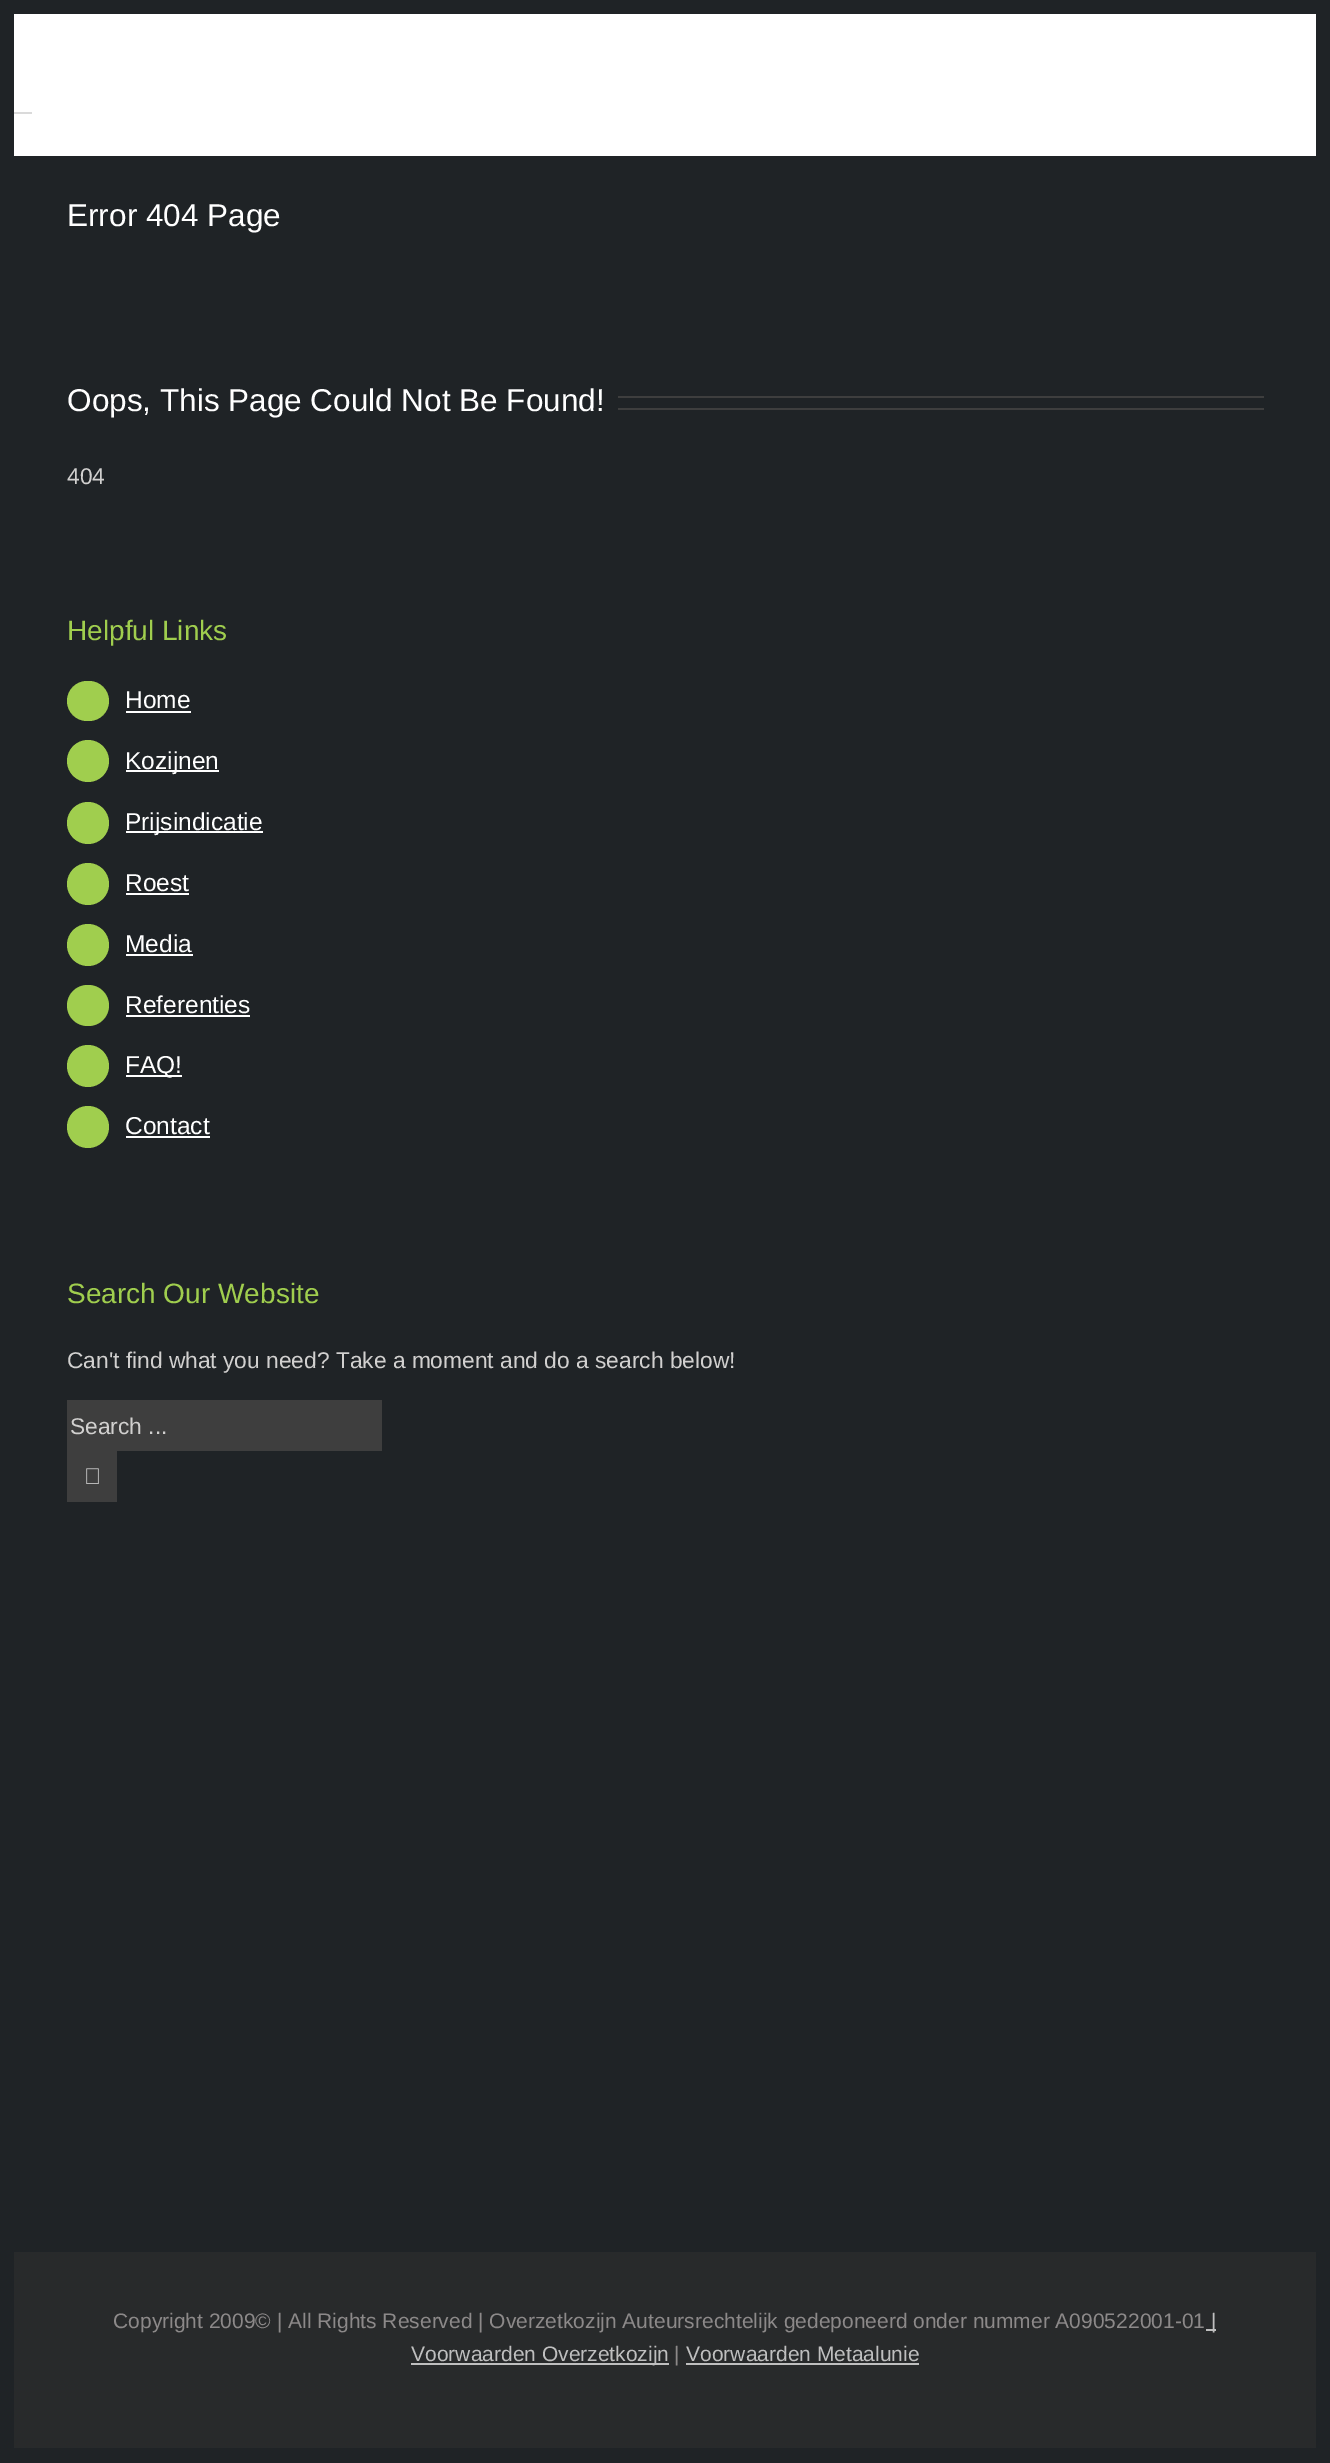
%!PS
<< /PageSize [1330 2463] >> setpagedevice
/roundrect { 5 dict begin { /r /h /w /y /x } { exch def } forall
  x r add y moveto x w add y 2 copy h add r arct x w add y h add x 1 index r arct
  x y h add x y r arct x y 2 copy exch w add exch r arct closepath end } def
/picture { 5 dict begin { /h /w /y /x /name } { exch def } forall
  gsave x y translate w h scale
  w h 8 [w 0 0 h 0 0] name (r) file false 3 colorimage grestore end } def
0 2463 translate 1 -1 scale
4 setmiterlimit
0.122 0.137 0.149 setrgbcolor
0 0 1330 2463 rectfill
1 setgray
14 14 1302 142 rectfill
0.855 setgray
14 112 18 2 rectfill
/LiberationSans-Regular [31.5 0 0 -31.5 0 0] selectfont
1 setgray
67 226 moveto (Error 404 Page) show
67 411 moveto (Oops, This Page Could Not Be Found!) show
0.243 setgray
618 396 646 2 rectfill
618 408 646 2 rectfill
/LiberationSans-Regular [22.75 0 0 -22.75 0 0] selectfont
0.82 0.816 0.812 setrgbcolor
67 484 moveto (404) show
/LiberationSans-Regular [28 0 0 -28 0 0] selectfont
0.627 0.808 0.306 setrgbcolor
67 640 moveto (Helpful Links) show
67 681 42 40 20 roundrect fill
/LiberationSans-Regular [24.5 0 0 -24.5 0 0] selectfont
1 setgray
125 708 moveto (Home) show
126 711 65 2 rectfill
0.627 0.808 0.306 setrgbcolor
newpath 88 761 21 0 360 arc closepath fill
1 setgray
126 770 93 2 rectfill
125 769 moveto (Kozijnen) show
0.627 0.808 0.306 setrgbcolor
newpath 88 823 21 0 360 arc closepath fill
1 setgray
126 831 137 2 rectfill
125 830 moveto (Prijsindicatie) show
0.627 0.808 0.306 setrgbcolor
newpath 88 884 21 0 360 arc closepath fill
1 setgray
125 891 moveto (Roest) show
126 893 63 2 rectfill
0.627 0.808 0.306 setrgbcolor
newpath 88 945 21 0 360 arc closepath fill
1 setgray
125 952 moveto (Media) show
126 954 67 2 rectfill
0.627 0.808 0.306 setrgbcolor
67 985 42 41 20.5 roundrect fill
1 setgray
125 1013 moveto (Referenties) show
126 1015 124 2 rectfill
0.627 0.808 0.306 setrgbcolor
newpath 88 1066 21 0 360 arc closepath fill
1 setgray
126 1075 56 2 rectfill
125 1073 moveto (FAQ!) show
0.627 0.808 0.306 setrgbcolor
newpath 88 1127 21 0 360 arc closepath fill
1 setgray
125 1134 moveto (Contact) show
126 1136 84 2 rectfill
/LiberationSans-Regular [28 0 0 -28 0 0] selectfont
0.627 0.808 0.306 setrgbcolor
67 1303 moveto (Search Our Website) show
/LiberationSans-Regular [22.75 0 0 -22.75 0 0] selectfont
0.82 0.816 0.812 setrgbcolor
67 1368 moveto (Can't find what you need? Take a moment and do a search below!) show
0.243 setgray
67 1400 315 51 rectfill
0.82 0.816 0.812 setrgbcolor
70 1434 moveto (Search ...) show
0.243 setgray
67 1451 50 51 rectfill
(img1.rgb) 86 1468 13 16 picture
0.157 0.165 0.169 setrgbcolor
14 2252 1302 196 rectfill
/LiberationSans-Regular [21 0 0 -21 0 0] selectfont
0.549 0.537 0.537 setrgbcolor
113 2328 moveto (Copyright 2009© | All Rights Reserved | Overzetkozijn Auteursrechtelijk gedeponeerd onder nummer A090522001-01) show
0.749 setgray
1206 2329 10 2 rectfill
1211 2328 moveto (|) show
411 2363 258 2 rectfill
411 2361 moveto (Voorwaarden Overzetkozijn) show
0.549 0.537 0.537 setrgbcolor
674 2361 moveto (|) show
0.749 setgray
686 2361 moveto (Voorwaarden Metaalunie) show
686 2363 233 2 rectfill
showpage
